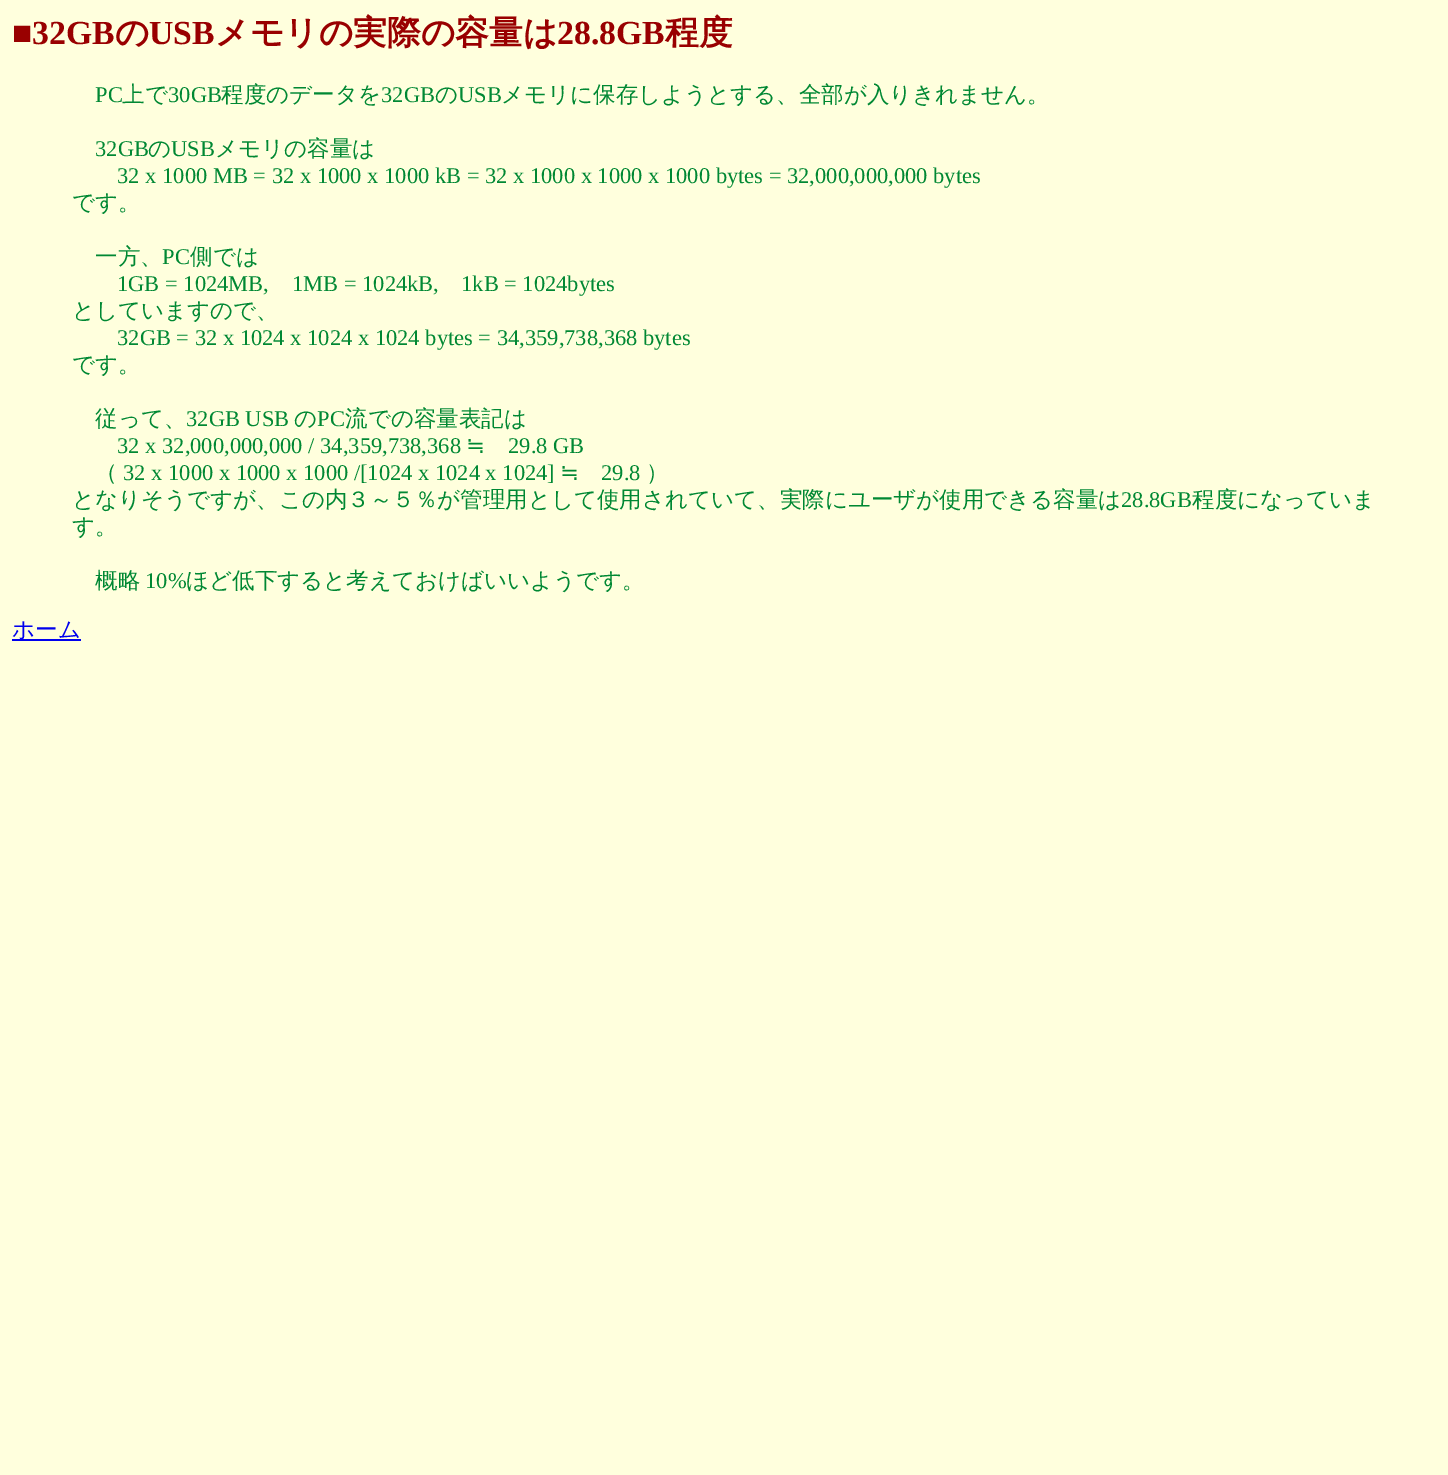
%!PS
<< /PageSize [1448 1475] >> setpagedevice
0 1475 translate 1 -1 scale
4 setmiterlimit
1 1 0.867 setrgbcolor
0 0 1448 1475 rectfill
/LiberationSerif-Bold [33.75 0 0 -33.75 0 0] selectfont
0.6 0 0 setrgbcolor
12 44 moveto (■32GB) show
/WenQuanYiZenHei-Bold [33.75 0 0 -33.75 0 0] selectfont
115 44 moveto (の) show
/LiberationSerif-Bold [33.75 0 0 -33.75 0 0] selectfont
149 44 moveto (USB) show
/WenQuanYiZenHei-Bold [33.75 0 0 -33.75 0 0] selectfont
215 44 moveto (メモリの実際の容量は) show
/LiberationSerif-Bold [33.75 0 0 -33.75 0 0] selectfont
557 44 moveto (28.8GB) show
/WenQuanYiZenHei-Bold [33.75 0 0 -33.75 0 0] selectfont
665 44 moveto (程度) show
/LiberationSerif-Regular [22.5 0 0 -22.5 0 0] selectfont
0 0.533 0.2 setrgbcolor
95 102 moveto (PC) show
/WenQuanYiZenHei-Medium [22.5 0 0 -22.5 0 0] selectfont
122 102 moveto (上で) show
/LiberationSerif-Regular [22.5 0 0 -22.5 0 0] selectfont
168 102 moveto (30GB) show
/WenQuanYiZenHei-Medium [22.5 0 0 -22.5 0 0] selectfont
221 102 moveto (程度のデータを) show
/LiberationSerif-Regular [22.5 0 0 -22.5 0 0] selectfont
381 102 moveto (32GB) show
/WenQuanYiZenHei-Medium [22.5 0 0 -22.5 0 0] selectfont
435 102 moveto (の) show
/LiberationSerif-Regular [22.5 0 0 -22.5 0 0] selectfont
458 102 moveto (USB) show
/WenQuanYiZenHei-Medium [22.5 0 0 -22.5 0 0] selectfont
501 102 moveto (メモリに保存しようとする、全部が入りきれません。) show
/LiberationSerif-Regular [22.5 0 0 -22.5 0 0] selectfont
95 156 moveto (32GB) show
/WenQuanYiZenHei-Medium [22.5 0 0 -22.5 0 0] selectfont
148 156 moveto (の) show
/LiberationSerif-Regular [22.5 0 0 -22.5 0 0] selectfont
171 156 moveto (USB) show
/WenQuanYiZenHei-Medium [22.5 0 0 -22.5 0 0] selectfont
215 156 moveto (メモリの容量は) show
/LiberationSerif-Regular [22.5 0 0 -22.5 0 0] selectfont
117 183 moveto (32 x 1000 MB = 32 x 1000 x 1000 kB = 32 x 1000 x 1000 x 1000 bytes = 32,000,000,000 bytes) show
/WenQuanYiZenHei-Medium [22.5 0 0 -22.5 0 0] selectfont
72 210 moveto (です。) show
95 264 moveto (一方、) show
/LiberationSerif-Regular [22.5 0 0 -22.5 0 0] selectfont
162 264 moveto (PC) show
/WenQuanYiZenHei-Medium [22.5 0 0 -22.5 0 0] selectfont
190 264 moveto (側では) show
/LiberationSerif-Regular [22.5 0 0 -22.5 0 0] selectfont
117 291 moveto (1GB = 1024MB,) show
292 291 moveto (1MB = 1024kB,) show
461 291 moveto (1kB = 1024bytes) show
/WenQuanYiZenHei-Medium [22.5 0 0 -22.5 0 0] selectfont
72 318 moveto (としていますので、) show
/LiberationSerif-Regular [22.5 0 0 -22.5 0 0] selectfont
117 345 moveto (32GB = 32 x 1024 x 1024 x 1024 bytes = 34,359,738,368 bytes) show
/WenQuanYiZenHei-Medium [22.5 0 0 -22.5 0 0] selectfont
72 372 moveto (です。) show
95 426 moveto (従って、) show
/LiberationSerif-Regular [22.5 0 0 -22.5 0 0] selectfont
186 426 moveto (32GB USB) show
/WenQuanYiZenHei-Medium [22.5 0 0 -22.5 0 0] selectfont
294 426 moveto (の) show
/LiberationSerif-Regular [22.5 0 0 -22.5 0 0] selectfont
317 426 moveto (PC) show
/WenQuanYiZenHei-Medium [22.5 0 0 -22.5 0 0] selectfont
345 426 moveto (流での容量表記は) show
/LiberationSerif-Regular [22.5 0 0 -22.5 0 0] selectfont
117 453 moveto (32 x 32,000,000,000 / 34,359,738,368) show
/DejaVuSans-Regular [22.5 0 0 -22.5 0 0] selectfont
466 453 moveto (≒) show
/LiberationSerif-Regular [22.5 0 0 -22.5 0 0] selectfont
508 453 moveto (29.8 GB) show
/WenQuanYiZenHei-Medium [22.5 0 0 -22.5 0 0] selectfont
95 480 moveto (（) show
/LiberationSerif-Regular [22.5 0 0 -22.5 0 0] selectfont
123 480 moveto (32 x 1000 x 1000 x 1000 /[1024 x 1024 x 1024]) show
/DejaVuSans-Regular [22.5 0 0 -22.5 0 0] selectfont
560 480 moveto (≒) show
/LiberationSerif-Regular [22.5 0 0 -22.5 0 0] selectfont
601 480 moveto (29.8) show
/WenQuanYiZenHei-Medium [22.5 0 0 -22.5 0 0] selectfont
646 480 moveto (）) show
72 507 moveto (となりそうですが、この内３～５％が管理用として使用されていて、実際にユーザが使用できる容量は) show
/LiberationSerif-Regular [22.5 0 0 -22.5 0 0] selectfont
1121 507 moveto (28.8GB) show
/WenQuanYiZenHei-Medium [22.5 0 0 -22.5 0 0] selectfont
1192 507 moveto (程度になっていま) show
72 534 moveto (す。) show
95 588 moveto (概略) show
/LiberationSerif-Regular [22.5 0 0 -22.5 0 0] selectfont
145 588 moveto (10%) show
/WenQuanYiZenHei-Medium [22.5 0 0 -22.5 0 0] selectfont
186 588 moveto (ほど低下すると考えておけばいいようです。) show
0 0 0.933 setrgbcolor
12 639 69 2 rectfill
12 637 moveto (ホーム) show
showpage
